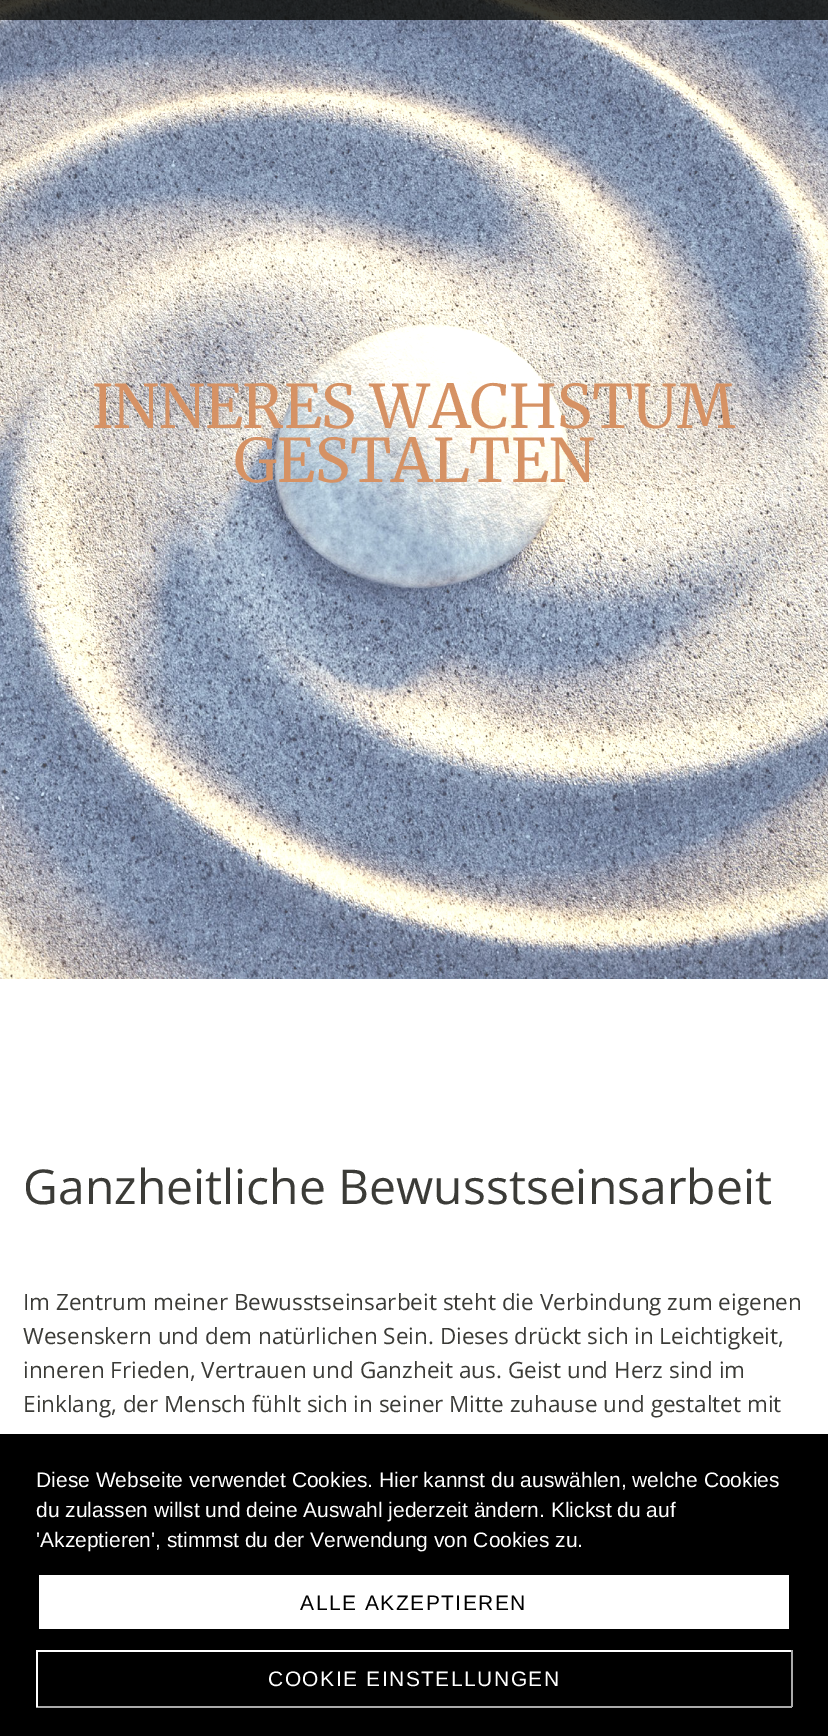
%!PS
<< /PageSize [828 1736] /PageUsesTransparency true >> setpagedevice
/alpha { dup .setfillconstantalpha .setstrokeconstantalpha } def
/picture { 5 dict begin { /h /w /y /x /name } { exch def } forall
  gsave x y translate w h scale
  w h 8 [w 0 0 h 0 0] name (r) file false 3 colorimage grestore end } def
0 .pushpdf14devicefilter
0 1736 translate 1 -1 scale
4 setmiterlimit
1 setgray
0 0 828 1736 rectfill
(img1.rgb) 0 0 828 979 picture
0.8 alpha
0.039 0.039 0.02 setrgbcolor
0 0 828 20 rectfill
/Merriweather-Regular [60 0 0 -60 0 0] selectfont
1 alpha
0.839 0.573 0.392 setrgbcolor
92 428 moveto (INNERES WACHSTUM) show
234 482 moveto (GESTALTEN) show
/OpenSans-Regular [48 0 0 -48 0 0] selectfont
0.231 0.231 0.216 setrgbcolor
23 1204 moveto (Ganzheitliche Bewusstseinsarbeit) show
/OpenSans-Regular [22.5 0 0 -22.5 0 0] selectfont
23 1310 moveto (Im Zentrum meiner Bewusstseinsarbeit steht die Verbindung zum eigenen) show
23 1344 moveto (Wesenskern und dem natürlichen Sein. Dieses drückt sich in Leichtigkeit,) show
23 1378 moveto (inneren Frieden, Vertrauen und Ganzheit aus. Geist und Herz sind im) show
23 1412 moveto (Einklang, der Mensch fühlt sich in seiner Mitte zuhause und gestaltet mit) show
0 setgray
0 1434 828 302 rectfill
/LiberationSans-Regular [21 0 0 -21 0 0] selectfont
1 setgray
36 1487 moveto (Diese Webseite verwendet Cookies. Hier kannst du auswählen, welche Cookies) show
36 1517 moveto (du zulassen willst und deine Auswahl jederzeit ändern. Klickst du auf) show
36 1547 moveto ('Akzeptieren', stimmst du der Verwendung von Cookies zu.) show
39 1575 750 54 rectfill
0 setgray
300 1610 moveto 1.5 0 (ALLE AKZEPTIEREN) ashow
1 setgray
36 1650 756 2 rectfill
0.667 setgray
791 1650 2 57 rectfill
36 1706 756 2 rectfill
1 setgray
36 1650 2 57 rectfill
268 1686 moveto 1.5 0 (COOKIE EINSTELLUNGEN) ashow
.poppdf14devicefilter showpage
